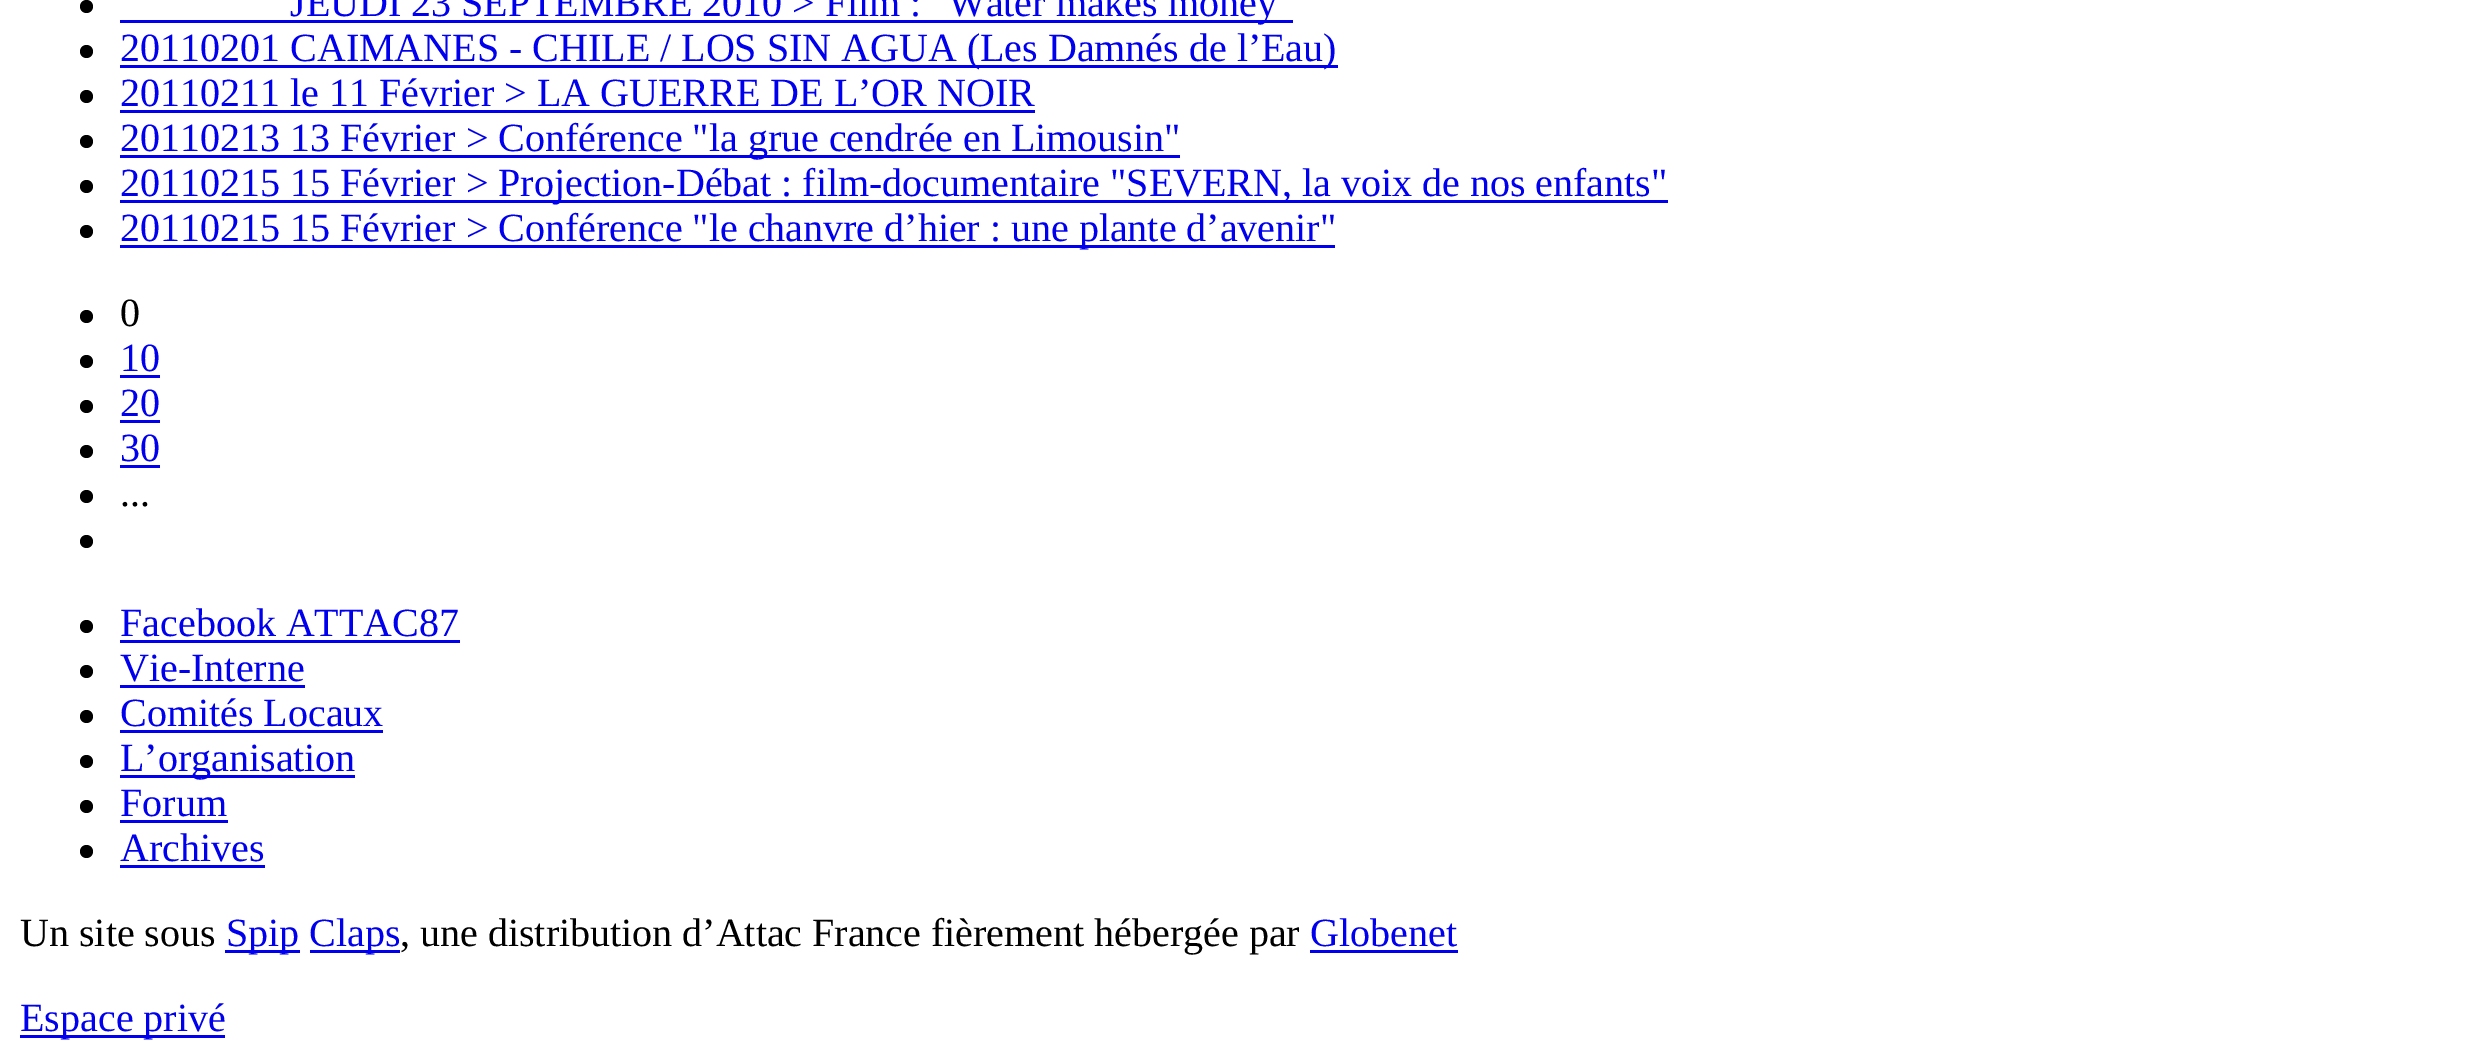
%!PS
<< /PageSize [2485 1061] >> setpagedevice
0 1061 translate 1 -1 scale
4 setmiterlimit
1 setgray
0 0 2485 1061 rectfill
0 setgray
newpath 86.5 6.5 6.5 0 360 arc closepath fill
0 0 0.933 setrgbcolor
120 20 1173 3 rectfill
/LiberationSerif-Regular [40 0 0 -40 0 0] selectfont
290 16 moveto (JEUDI 23 SEPTEMBRE 2010 > Film : "Water makes money) show
0 setgray
newpath 86.5 51.5 6.5 0 360 arc closepath fill
0 0 0.933 setrgbcolor
120 65 1218 3 rectfill
120 61 moveto (20110201 CAIMANES - CHILE / LOS SIN AGUA \(Les Damnés de l’Eau\)) show
0 setgray
newpath 86.5 96.5 6.5 0 360 arc closepath fill
0 0 0.933 setrgbcolor
120 106 moveto (20110211 le 11 Février > LA GUERRE DE L’OR NOIR) show
120 110 915 3 rectfill
0 setgray
newpath 86.5 141.5 6.5 0 360 arc closepath fill
0 0 0.933 setrgbcolor
120 155 1060 3 rectfill
120 151 moveto (20110213 13 Février > Conférence "la grue cendrée en Limousin") show
0 setgray
newpath 86.5 186.5 6.5 0 360 arc closepath fill
0 0 0.933 setrgbcolor
120 200 1548 3 rectfill
120 196 moveto (20110215 15 Février > Projection-Débat : film-documentaire "SEVERN, la voix de nos enfants") show
0 setgray
newpath 86.5 231.5 6.5 0 360 arc closepath fill
0 0 0.933 setrgbcolor
120 245 1215 3 rectfill
120 241 moveto (20110215 15 Février > Conférence "le chanvre d’hier : une plante d’avenir") show
0 setgray
newpath 86.5 316.5 6.5 0 360 arc closepath fill
120 326 moveto (0) show
newpath 86.5 361.5 6.5 0 360 arc closepath fill
0 0 0.933 setrgbcolor
120 371 moveto (10) show
120 375 40 3 rectfill
0 setgray
newpath 86.5 406.5 6.5 0 360 arc closepath fill
0 0 0.933 setrgbcolor
120 416 moveto (20) show
120 420 40 3 rectfill
0 setgray
newpath 86.5 451.5 6.5 0 360 arc closepath fill
0 0 0.933 setrgbcolor
120 461 moveto (30) show
120 465 40 3 rectfill
0 setgray
newpath 86.5 496.5 6.5 0 360 arc closepath fill
120 506 moveto (...) show
newpath 86.5 541.5 6.5 0 360 arc closepath fill
newpath 86.5 626.5 6.5 0 360 arc closepath fill
0 0 0.933 setrgbcolor
120 636 moveto (Facebook ATTAC87) show
120 640 340 3 rectfill
0 setgray
newpath 86.5 671.5 6.5 0 360 arc closepath fill
0 0 0.933 setrgbcolor
120 681 moveto (Vie-Interne) show
120 685 185 3 rectfill
0 setgray
newpath 86.5 716.5 6.5 0 360 arc closepath fill
0 0 0.933 setrgbcolor
120 726 moveto (Comités Locaux) show
120 730 263 3 rectfill
0 setgray
newpath 86.5 761.5 6.5 0 360 arc closepath fill
0 0 0.933 setrgbcolor
120 775 235 3 rectfill
120 771 moveto (L’organisation) show
0 setgray
newpath 86.5 806.5 6.5 0 360 arc closepath fill
0 0 0.933 setrgbcolor
120 816 moveto (Forum) show
120 820 108 3 rectfill
0 setgray
newpath 86.5 851.5 6.5 0 360 arc closepath fill
0 0 0.933 setrgbcolor
120 861 moveto (Archives) show
120 865 145 3 rectfill
0 setgray
20 946 moveto (Un site sous) show
0 0 0.933 setrgbcolor
225 950 75 3 rectfill
226 946 moveto (Spip) show
310 950 90 3 rectfill
309 946 moveto (Claps) show
0 setgray
400 946 moveto (, une distribution d’Attac France fièrement hébergée par) show
0 0 0.933 setrgbcolor
1310 946 moveto (Globenet) show
1310 950 148 3 rectfill
20 1035 205 3 rectfill
20 1031 moveto (Espace privé) show
showpage
